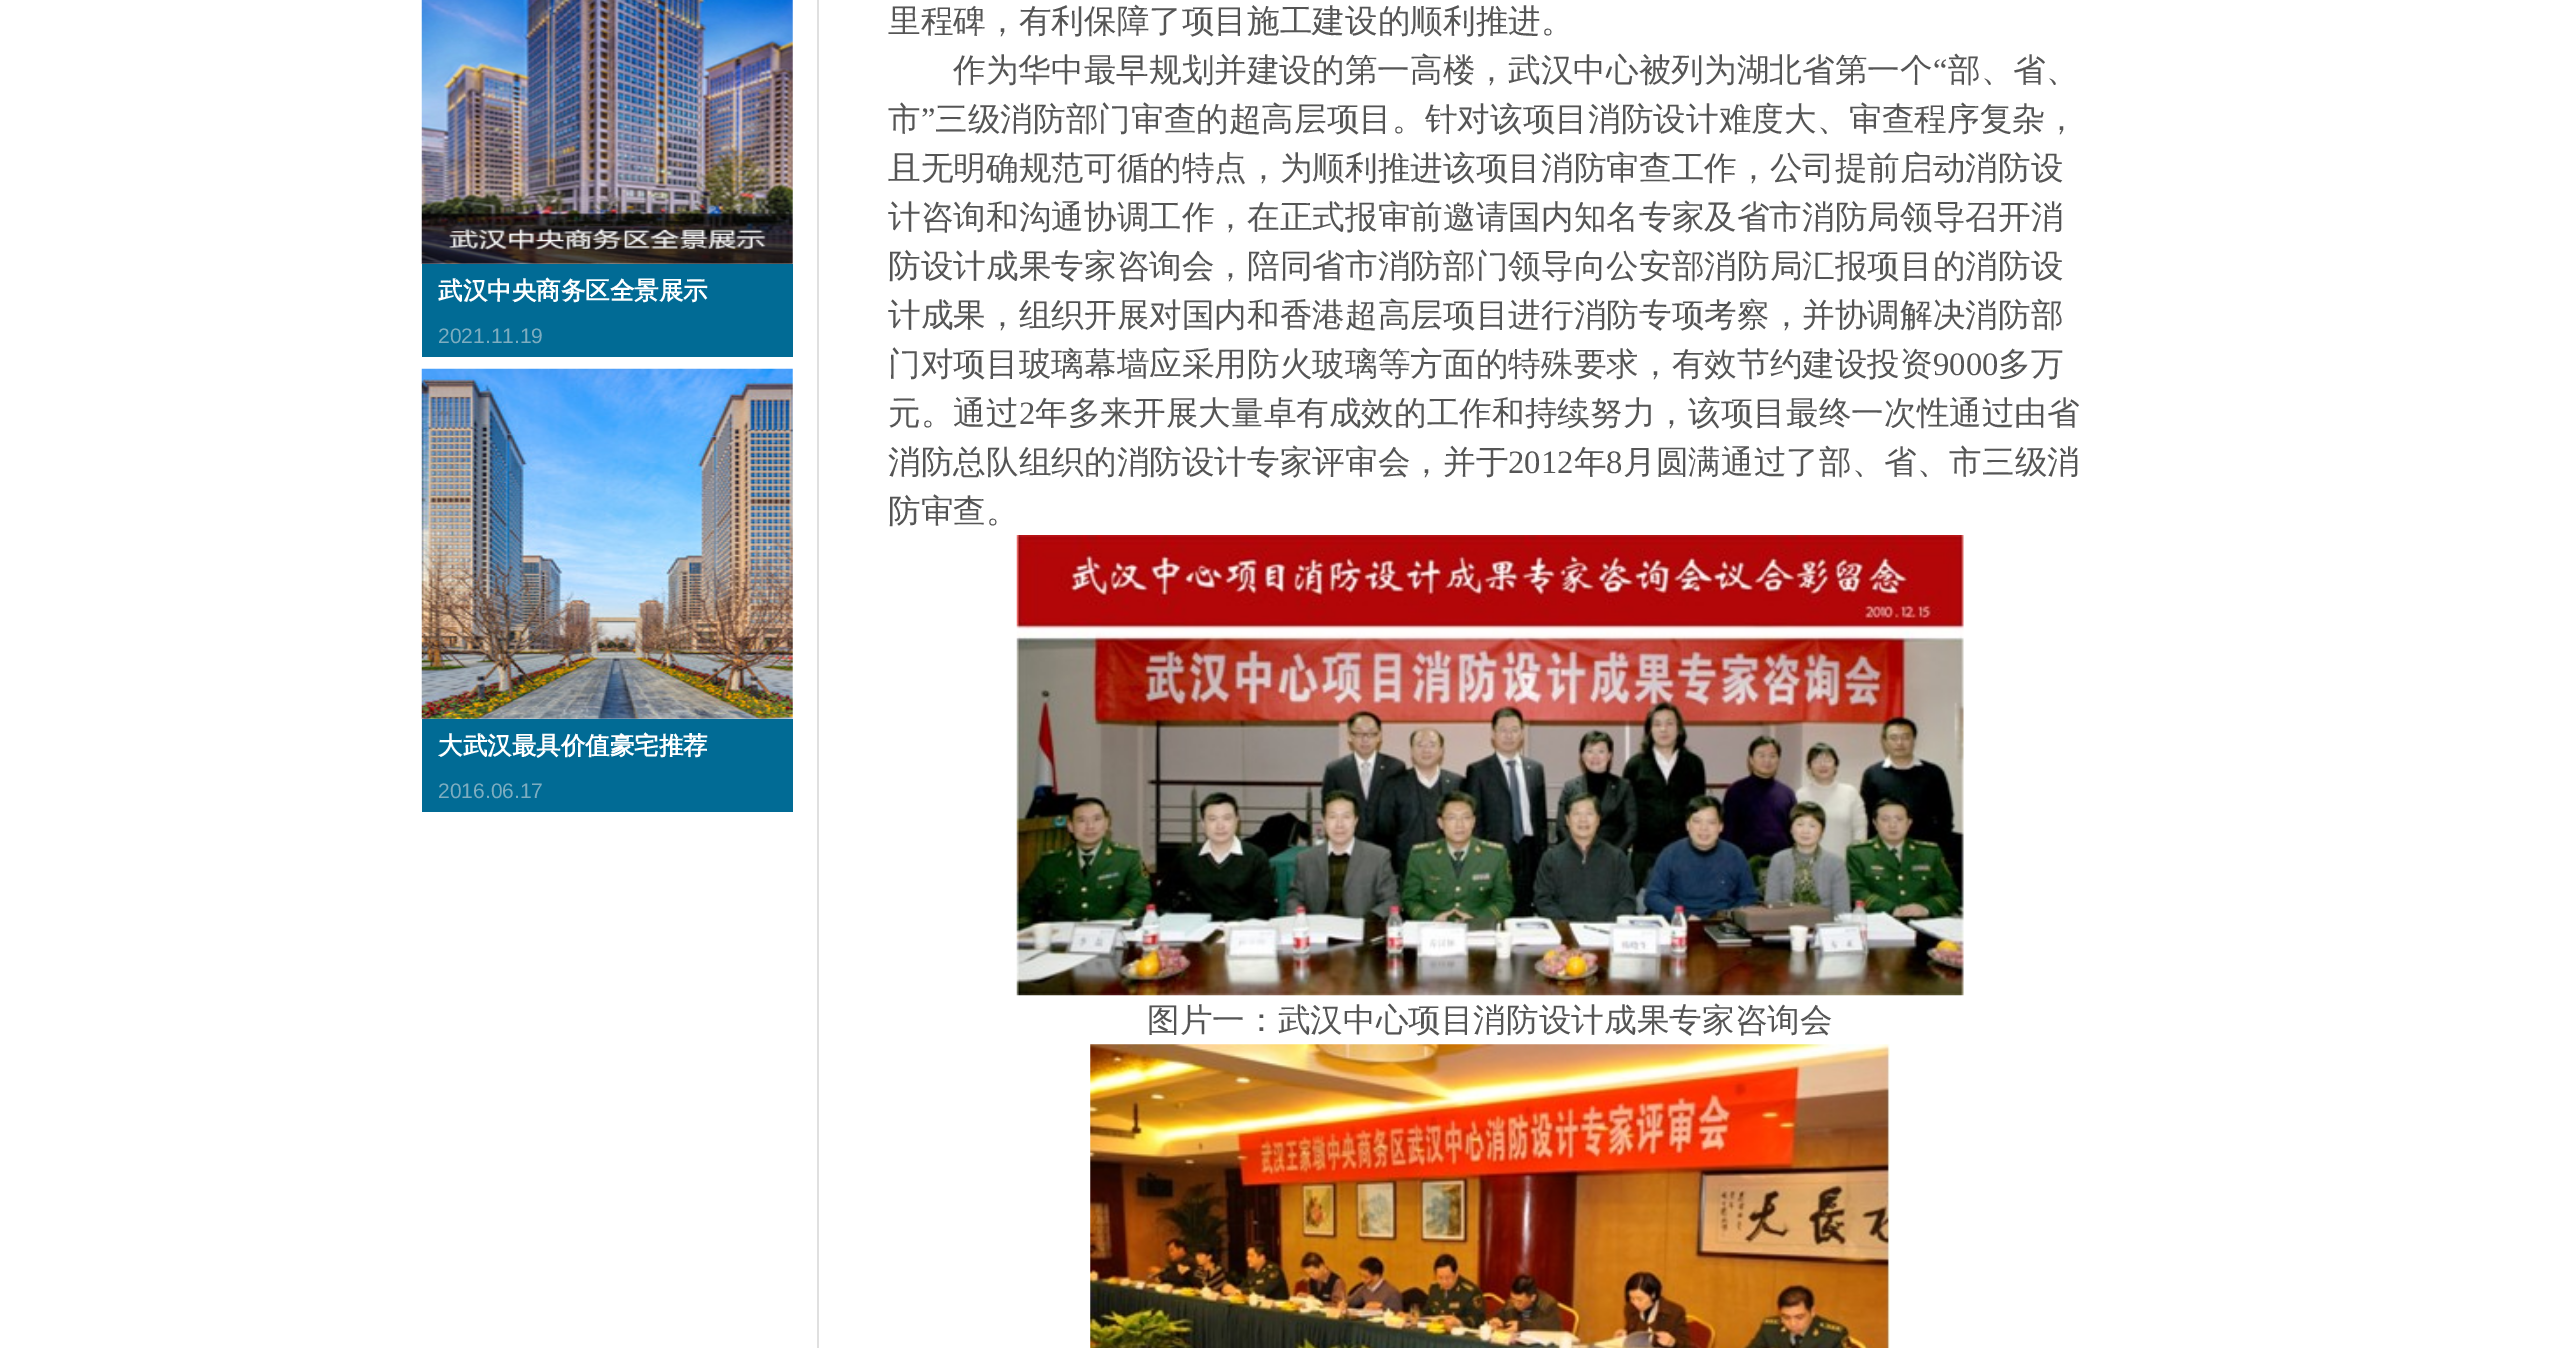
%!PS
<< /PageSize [2574 1348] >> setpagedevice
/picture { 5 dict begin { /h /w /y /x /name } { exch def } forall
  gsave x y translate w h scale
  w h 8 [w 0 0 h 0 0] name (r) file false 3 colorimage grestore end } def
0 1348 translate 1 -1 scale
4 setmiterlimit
1 setgray
0 0 2574 1348 rectfill
(img1.rgb) 421 0 372 264 picture
0.004 0.42 0.584 setrgbcolor
422 264 371 93 rectfill
/WenQuanYiZenHei-Bold [24.5 0 0 -24.5 0 0] selectfont
1 setgray
438 299 moveto (武汉中央商务区全景展示) show
/LiberationSans-Regular [21 0 0 -21 0 0] selectfont
0.49 0.678 0.753 setrgbcolor
438 343 moveto (2021.11.19) show
(img2.rgb) 421 368 372 351 picture
0.004 0.42 0.584 setrgbcolor
422 719 371 93 rectfill
/WenQuanYiZenHei-Bold [24.5 0 0 -24.5 0 0] selectfont
1 setgray
438 754 moveto (大武汉最具价值豪宅推荐) show
/LiberationSans-Regular [21 0 0 -21 0 0] selectfont
0.49 0.678 0.753 setrgbcolor
438 798 moveto (2016.06.17) show
0.878 setgray
817 0 2 1348 rectfill
/WenQuanYiZenHei-Medium [32.65 0 0 -32.65 0 0] selectfont
0.333 setgray
888 32 moveto (里程碑，有利保障了项目施工建设的顺利推进。) show
953 81 moveto (作为华中最早规划并建设的第一高楼，武汉中心被列为湖北省第一个) show
/LiberationSerif-Regular [32.65 0 0 -32.65 0 0] selectfont
1933 81 moveto (“) show
/WenQuanYiZenHei-Medium [32.65 0 0 -32.65 0 0] selectfont
1948 81 moveto (部、省、) show
888 130 moveto (市) show
/LiberationSerif-Regular [32.65 0 0 -32.65 0 0] selectfont
921 130 moveto (”) show
/WenQuanYiZenHei-Medium [32.65 0 0 -32.65 0 0] selectfont
935 130 moveto (三级消防部门审查的超高层项目。针对该项目消防设计难度大、审查程序复杂，) show
888 179 moveto (且无明确规范可循的特点，为顺利推进该项目消防审查工作，公司提前启动消防设) show
888 228 moveto (计咨询和沟通协调工作，在正式报审前) show
1443 228 moveto (邀请国内知名专家及省市消防局领导召开消) show
888 277 moveto (防设计成果专家咨询会，陪同省市消防部门领导向公安部消防局汇报项目的消防设) show
888 326 moveto (计成果，组织开展对国内和香港超高层项目进行消防专项考察，并协调解决消防部) show
888 375 moveto (门对项目玻璃幕墙应采用防火玻璃等方面的特殊要求，有效节约建设投资) show
/LiberationSerif-Regular [32.65 0 0 -32.65 0 0] selectfont
1933 375 moveto (9000) show
/WenQuanYiZenHei-Medium [32.65 0 0 -32.65 0 0] selectfont
1998 375 moveto (多万) show
888 424 moveto (元。通过) show
/LiberationSerif-Regular [32.65 0 0 -32.65 0 0] selectfont
1019 424 moveto (2) show
/WenQuanYiZenHei-Medium [32.65 0 0 -32.65 0 0] selectfont
1035 424 moveto (年多来开展大量卓有成效的工作和持续努力，) show
1688 424 moveto (该项目最终一次性通过由省) show
888 473 moveto (消防总队组织的消防设计专家评审会，并于) show
/LiberationSerif-Regular [32.65 0 0 -32.65 0 0] selectfont
1508 473 moveto (2012) show
/WenQuanYiZenHei-Medium [32.65 0 0 -32.65 0 0] selectfont
1574 473 moveto (年) show
/LiberationSerif-Regular [32.65 0 0 -32.65 0 0] selectfont
1606 473 moveto (8) show
/WenQuanYiZenHei-Medium [32.65 0 0 -32.65 0 0] selectfont
1623 473 moveto (月圆满通过了部、省、市三级消) show
888 522 moveto (防审查。) show
(img3.rgb) 1016 535 948 461 picture
1147 1031 moveto (图片一：武汉中心项目消防设计成果专家咨询会) show
(img4.rgb) 1090 1044 800 304 picture
showpage
